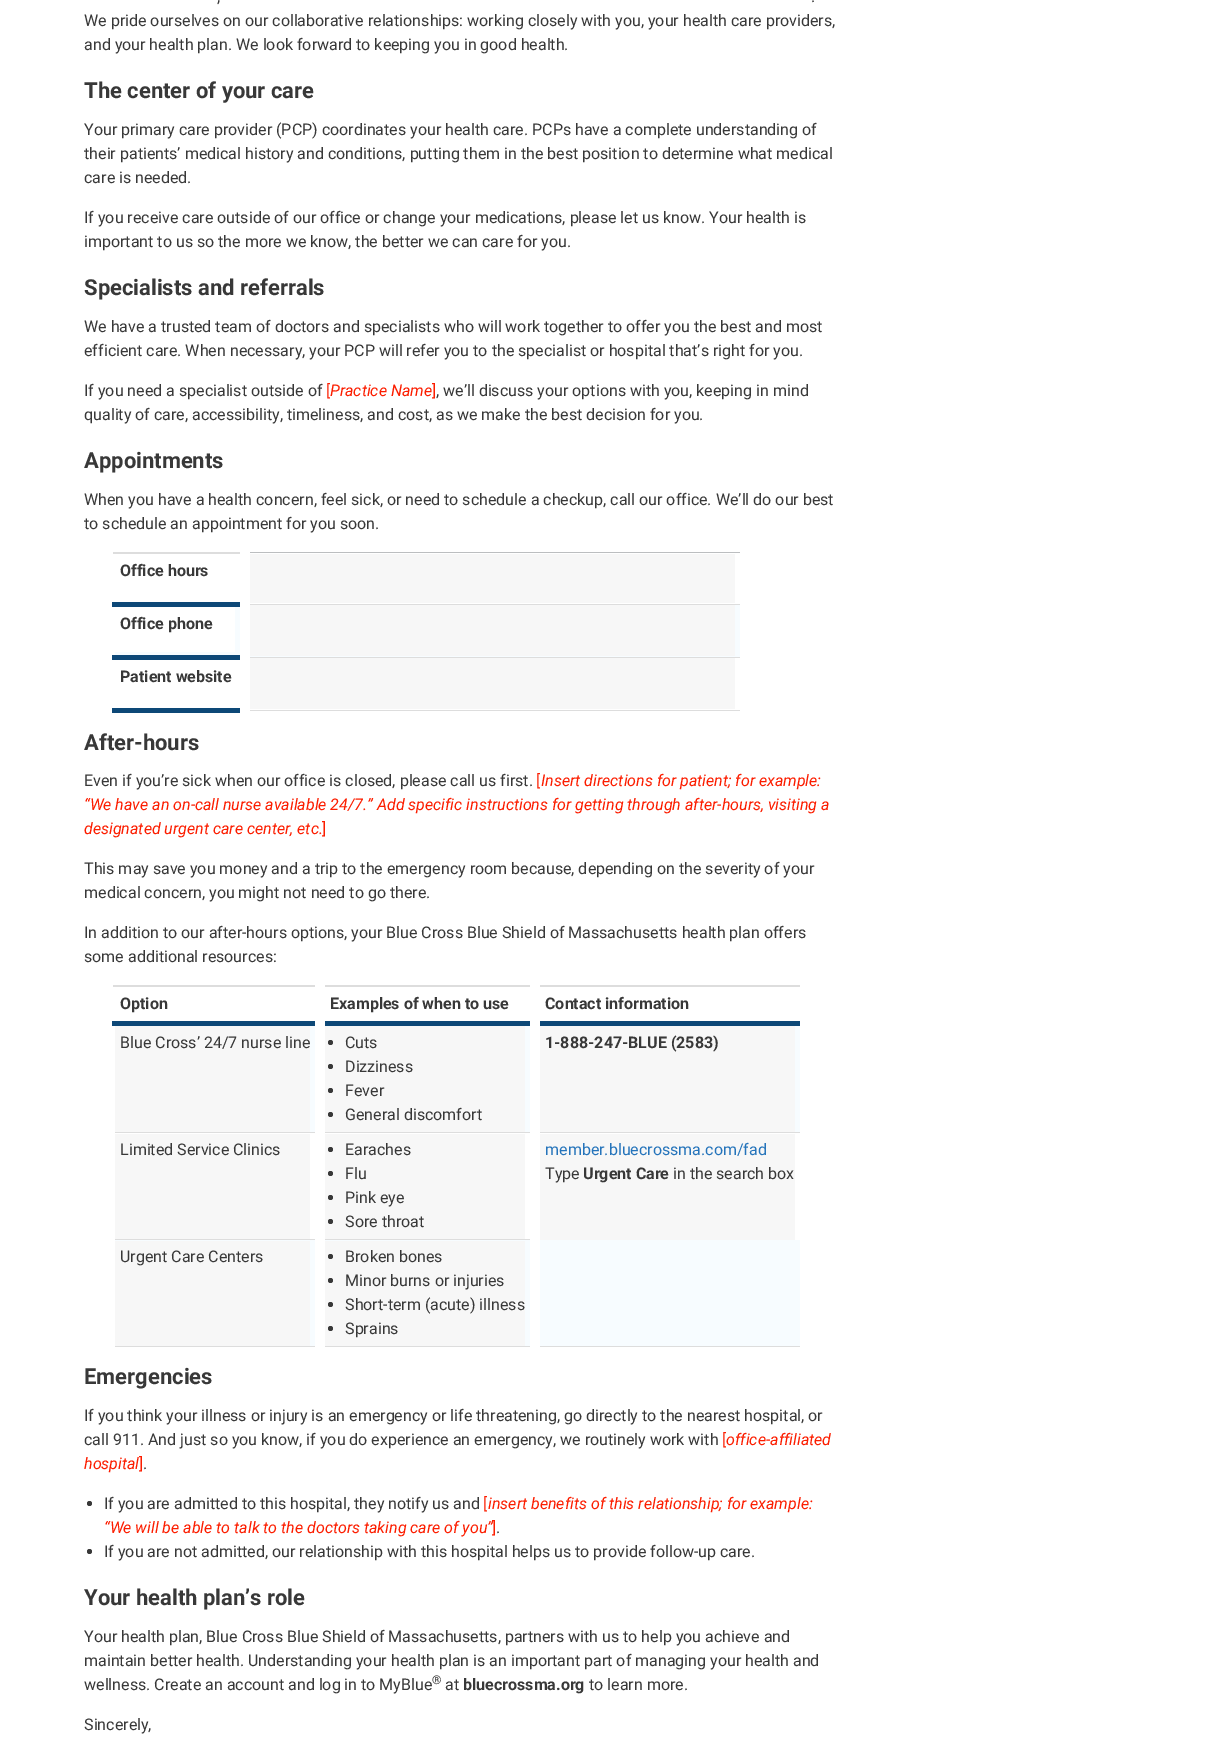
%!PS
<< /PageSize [1217 1762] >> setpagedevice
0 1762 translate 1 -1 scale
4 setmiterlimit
1 setgray
0 0 1217 1762 rectfill
/Roboto-Regular [16 0 0 -16 0 0] selectfont
0.22 setgray
217 2 moveto (,) show
811 2 moveto (.) show
84 26 moveto (We pride ourselves on our collaborative relationships: working closely with you, your health care providers,) show
84 50 moveto (and your health plan. We look forward to keeping you in good health.) show
/Roboto-Bold [22 0 0 -22 0 0] selectfont
84 98 moveto (The center of your care) show
/Roboto-Regular [16 0 0 -16 0 0] selectfont
84 135 moveto (Your primary care provider \(PCP\) coordinates your health care. PCPs have a complete understanding of) show
84 159 moveto (their patients’ medical history and conditions, putting them in the best position to determine what medical) show
84 183 moveto (care is needed.) show
84 223 moveto (If you receive care outside of our office or change your medications, please let us know. Your health is) show
84 247 moveto (important to us so the more we know, the better we can care for you.) show
/Roboto-Bold [22 0 0 -22 0 0] selectfont
84 295 moveto (Specialists and referrals) show
/Roboto-Regular [16 0 0 -16 0 0] selectfont
84 332 moveto (We have a trusted team of doctors and specialists who will work together to offer you the best and most) show
84 356 moveto (efficient care. When necessary, your PCP will refer you to the specialist or hospital that’s right for you.) show
84 396 moveto (If you need a specialist outside of) show
0.988 0.114 0 setrgbcolor
326 396 moveto ([) show
/Roboto-Italic [16 0 0 -16 0 0] selectfont
330 396 moveto (Practice Name) show
/Roboto-Regular [16 0 0 -16 0 0] selectfont
432 396 moveto (]) show
0.22 setgray
436 396 moveto (, we’ll discuss your options with you, keeping in mind) show
84 420 moveto (quality of care, accessibility, timeliness, and cost, as we make the best decision for you.) show
/Roboto-Bold [22 0 0 -22 0 0] selectfont
84 468 moveto (Appointments) show
/Roboto-Regular [16 0 0 -16 0 0] selectfont
84 505 moveto (When you have a health concern, feel sick, or need to schedule a checkup, call our office. We’ll do our best) show
84 529 moveto (to schedule an appointment for you soon.) show
0.737 0.745 0.753 setrgbcolor
245 552 501 1 rectfill
0.867 setgray
113 552 133 2 rectfill
245 604 501 1 rectfill
0.969 0.988 1 setrgbcolor
115 605 625 52 rectfill
0.051 0.282 0.467 setrgbcolor
112 602 136 5 rectfill
/Roboto-Bold [16 0 0 -16 0 0] selectfont
0.22 setgray
120 576 moveto (Office hours) show
0.969 setgray
250 554 485 49 rectfill
1 setgray
740 552 6 53 rectfill
115 607 120 45 rectfill
0.867 setgray
245 657 501 1 rectfill
0.051 0.282 0.467 setrgbcolor
112 655 136 5 rectfill
1 setgray
240 552 10 108 rectfill
0.22 setgray
120 629 moveto (Office phone) show
0.969 setgray
250 605 485 51 rectfill
1 setgray
740 657 6 1 rectfill
0.867 setgray
245 710 501 1 rectfill
0.051 0.282 0.467 setrgbcolor
112 708 136 5 rectfill
1 setgray
240 708 10 5 rectfill
0.22 setgray
120 682 moveto (Patient website) show
0.969 setgray
250 658 485 51 rectfill
1 setgray
740 710 6 1 rectfill
/Roboto-Bold [22 0 0 -22 0 0] selectfont
0.22 setgray
84 750 moveto (After-hours) show
/Roboto-Regular [16 0 0 -16 0 0] selectfont
84 786 moveto (Even if you’re sick when our office is closed, please call us first.) show
0.988 0.114 0 setrgbcolor
536 786 moveto ([) show
/Roboto-Italic [16 0 0 -16 0 0] selectfont
541 786 moveto (Insert directions for patient; for example:) show
84 810 moveto (“We have an on-call nurse available 24/7.” Add specific instructions for getting through after-hours, visiting a) show
84 834 moveto (designated urgent care center, etc.) show
/Roboto-Regular [16 0 0 -16 0 0] selectfont
322 834 moveto (]) show
0.22 setgray
84 874 moveto (This may save you money and a trip to the emergency room because, depending on the severity of your) show
84 898 moveto (medical concern, you might not need to go there.) show
84 938 moveto (In addition to our after-hours options, your Blue Cross Blue Shield of Massachusetts health plan offers) show
84 962 moveto (some additional resources:) show
/Roboto-Bold [16 0 0 -16 0 0] selectfont
120 1009 moveto (Option) show
330 1009 moveto (Examples of when to use) show
0.867 setgray
113 985 693 2 rectfill
0.051 0.282 0.467 setrgbcolor
112 1021 695 5 rectfill
1 setgray
800 985 7 41 rectfill
0.22 setgray
545 1009 moveto (Contact information) show
0.969 0.988 1 setrgbcolor
310 1026 490 106 rectfill
0.969 setgray
115 1026 195 106 rectfill
0.867 setgray
114 1132 691 1 rectfill
1 setgray
114 1132 1 1 rectfill
315 985 10 148 rectfill
/Roboto-Regular [16 0 0 -16 0 0] selectfont
0.22 setgray
120 1048 moveto (Blue Cross’ 24/7 nurse line) show
0.969 setgray
325 1026 200 106 rectfill
1 setgray
530 985 10 148 rectfill
0.22 setgray
newpath 330.5 1042.5 2.5 0 360 arc closepath fill
345 1048 moveto (Cuts) show
newpath 330.5 1066.5 2.5 0 360 arc closepath fill
345 1072 moveto (Dizziness) show
newpath 330.5 1090.5 2.5 0 360 arc closepath fill
345 1096 moveto (Fever) show
newpath 330.5 1114.5 2.5 0 360 arc closepath fill
345 1120 moveto (General discomfort) show
0.969 setgray
540 1026 255 106 rectfill
1 setgray
800 1132 5 1 rectfill
/Roboto-Bold [16 0 0 -16 0 0] selectfont
0.22 setgray
545 1048 moveto (1-888-247-BLUE \(2583\)) show
0.969 setgray
115 1134 195 105 rectfill
0.867 setgray
114 1239 421 1 rectfill
1 setgray
114 1239 1 1 rectfill
/Roboto-Regular [16 0 0 -16 0 0] selectfont
0.22 setgray
120 1155 moveto (Limited Service Clinics) show
0.969 setgray
325 1134 200 105 rectfill
0.22 setgray
newpath 330.5 1149.5 2.5 0 360 arc closepath fill
345 1155 moveto (Earaches) show
newpath 330.5 1173.5 2.5 0 360 arc closepath fill
345 1179 moveto (Flu) show
newpath 330.5 1197.5 2.5 0 360 arc closepath fill
345 1203 moveto (Pink eye) show
newpath 330.5 1221.5 2.5 0 360 arc closepath fill
345 1227 moveto (Sore throat) show
0.969 setgray
540 1134 255 106 rectfill
0.867 setgray
114 1346 691 1 rectfill
1 setgray
800 1346 5 1 rectfill
0.145 0.455 0.733 setrgbcolor
545 1155 moveto (member.bluecrossma.com/fad) show
0.22 setgray
545 1179 moveto (Type) show
/Roboto-Bold [16 0 0 -16 0 0] selectfont
583 1179 moveto (Urgent Care) show
/Roboto-Regular [16 0 0 -16 0 0] selectfont
673 1179 moveto (in the search box) show
0.969 0.988 1 setrgbcolor
115 1240 685 106 rectfill
0.969 setgray
115 1241 195 105 rectfill
1 setgray
114 1346 1 1 rectfill
315 1239 10 108 rectfill
0.22 setgray
120 1262 moveto (Urgent Care Centers) show
0.969 setgray
325 1241 200 105 rectfill
1 setgray
530 1239 10 108 rectfill
0.22 setgray
newpath 330.5 1256.5 2.5 0 360 arc closepath fill
345 1262 moveto (Broken bones) show
newpath 330.5 1280.5 2.5 0 360 arc closepath fill
345 1286 moveto (Minor burns or injuries) show
newpath 330.5 1304.5 2.5 0 360 arc closepath fill
345 1310 moveto (Short-term \(acute\) illness) show
newpath 330.5 1328.5 2.5 0 360 arc closepath fill
345 1334 moveto (Sprains) show
/Roboto-Bold [22 0 0 -22 0 0] selectfont
84 1384 moveto (Emergencies) show
/Roboto-Regular [16 0 0 -16 0 0] selectfont
84 1421 moveto (If you think your illness or injury is an emergency or life threatening, go directly to the nearest hospital, or) show
84 1445 moveto (call 911. And just so you know, if you do experience an emergency, we routinely work with) show
0.988 0.114 0 setrgbcolor
722 1445 moveto ([) show
/Roboto-Italic [16 0 0 -16 0 0] selectfont
726 1445 moveto (office-affiliated) show
84 1469 moveto (hospital) show
/Roboto-Regular [16 0 0 -16 0 0] selectfont
139 1469 moveto (]) show
0.22 setgray
143 1469 moveto (.) show
newpath 89.5 1503.5 2.5 0 360 arc closepath fill
104 1509 moveto (If you are admitted to this hospital, they notify us and) show
0.988 0.114 0 setrgbcolor
483 1509 moveto ([) show
/Roboto-Italic [16 0 0 -16 0 0] selectfont
488 1509 moveto (insert benefits of this relationship; for example:) show
104 1533 moveto (“We will be able to talk to the doctors taking care of you”) show
/Roboto-Regular [16 0 0 -16 0 0] selectfont
492 1533 moveto (]) show
0.22 setgray
496 1533 moveto (.) show
newpath 89.5 1551.5 2.5 0 360 arc closepath fill
104 1557 moveto (If you are not admitted, our relationship with this hospital helps us to provide follow-up care.) show
/Roboto-Bold [22 0 0 -22 0 0] selectfont
84 1605 moveto (Your health plan’s role) show
/Roboto-Regular [16 0 0 -16 0 0] selectfont
84 1642 moveto (Your health plan, Blue Cross Blue Shield of Massachusetts, partners with us to help you achieve and) show
84 1666 moveto (maintain better health. Understanding your health plan is an important part of managing your health and) show
84 1690 moveto (wellness. Create an account and log in to MyBlue) show
/Roboto-Regular [12 0 0 -12 0 0] selectfont
432 1684 moveto (®) show
/Roboto-Regular [16 0 0 -16 0 0] selectfont
445 1690 moveto (at) show
/Roboto-Bold [16 0 0 -16 0 0] selectfont
463 1690 moveto (bluecrossma.org) show
/Roboto-Regular [16 0 0 -16 0 0] selectfont
589 1690 moveto (to learn more.) show
84 1730 moveto (Sincerely,) show
showpage
